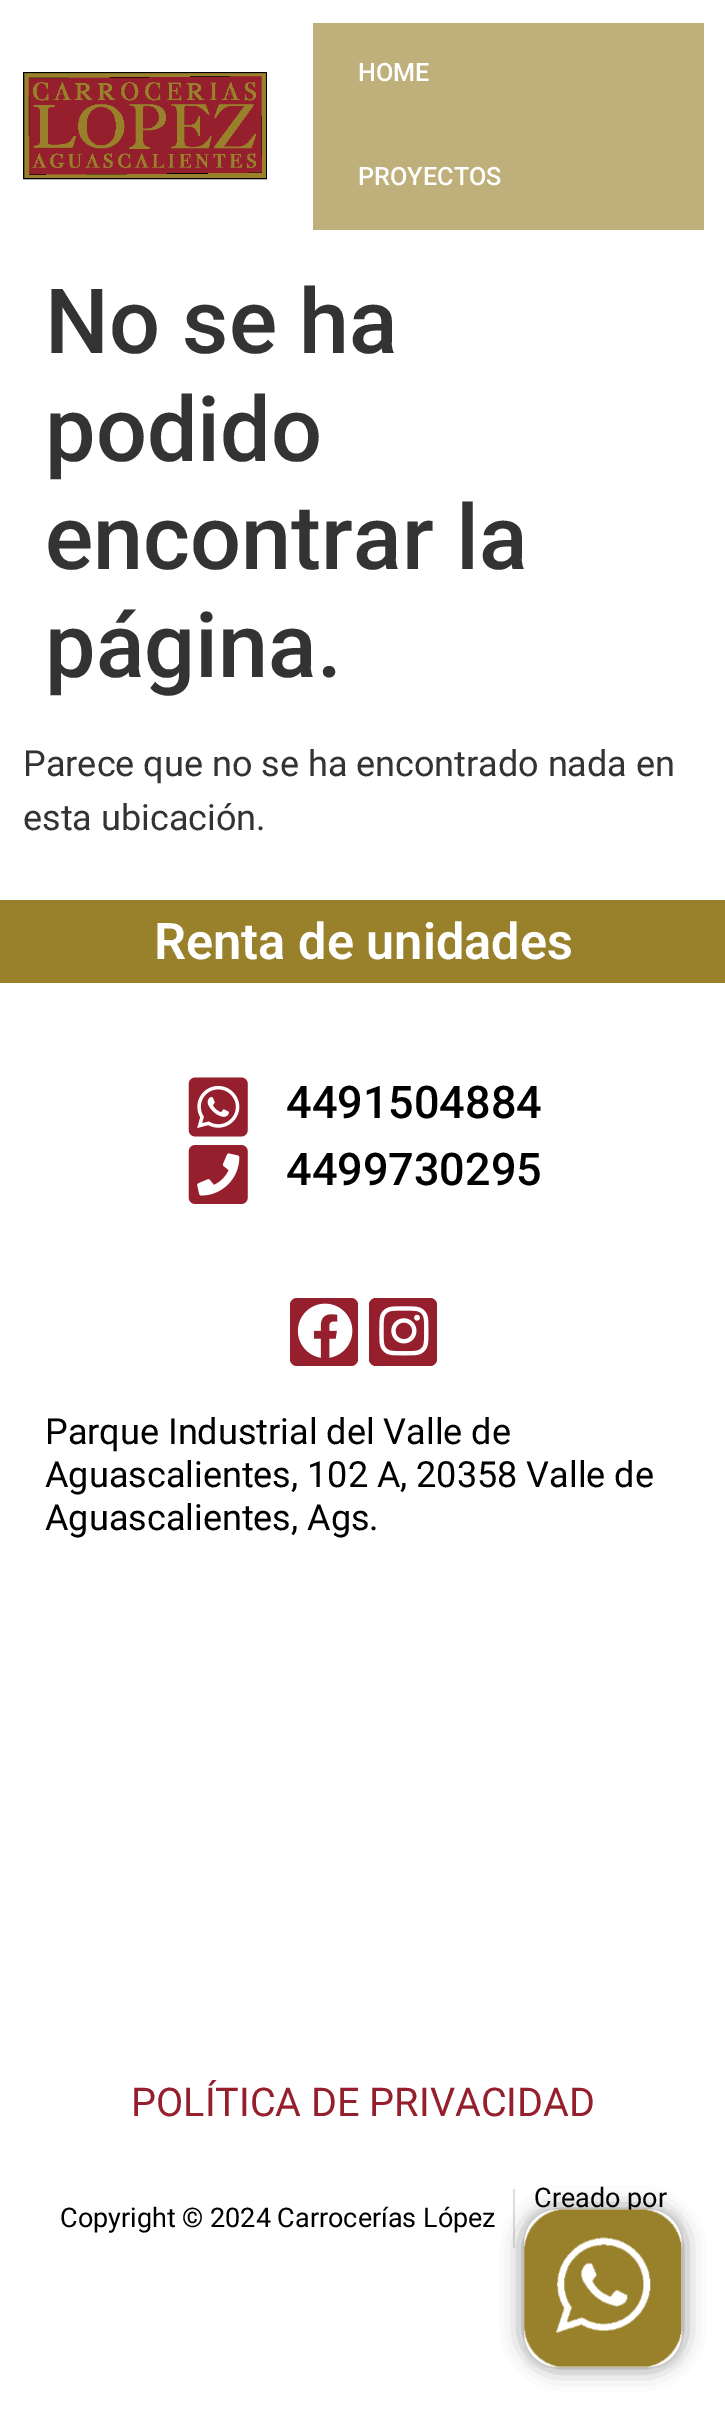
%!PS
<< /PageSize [725 2410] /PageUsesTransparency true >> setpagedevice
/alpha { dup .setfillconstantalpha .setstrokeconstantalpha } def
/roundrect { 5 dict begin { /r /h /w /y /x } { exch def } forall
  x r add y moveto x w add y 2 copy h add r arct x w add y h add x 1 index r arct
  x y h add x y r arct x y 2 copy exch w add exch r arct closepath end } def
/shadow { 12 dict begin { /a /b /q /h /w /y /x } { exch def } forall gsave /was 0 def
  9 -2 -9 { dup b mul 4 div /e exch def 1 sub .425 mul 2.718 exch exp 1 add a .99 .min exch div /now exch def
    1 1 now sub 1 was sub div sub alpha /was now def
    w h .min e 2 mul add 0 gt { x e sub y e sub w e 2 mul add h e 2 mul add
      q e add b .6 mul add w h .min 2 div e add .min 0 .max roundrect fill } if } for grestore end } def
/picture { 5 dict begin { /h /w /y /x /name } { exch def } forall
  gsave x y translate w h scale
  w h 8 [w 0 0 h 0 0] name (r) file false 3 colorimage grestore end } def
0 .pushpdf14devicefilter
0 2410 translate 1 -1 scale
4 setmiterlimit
1 setgray
0 0 725 2410 rectfill
(img1.rgb) 23 72 244 108 picture
0.749 0.686 0.478 setrgbcolor
313 23 391 207 rectfill
/Roboto-Medium [25.25 0 0 -25.25 0 0] selectfont
1 setgray
358 81 moveto (HOME) show
358 185 moveto (PROYECTOS) show
/Roboto-Medium [90 0 0 -90 0 0] selectfont
0.2 setgray
45 353 moveto (No se ha) show
45 461 moveto (podido) show
45 569 moveto (encontrar la) show
45 677 moveto (página.) show
/Roboto-Regular [36 0 0 -36 0 0] selectfont
23 776 moveto (Parece que no se ha encontrado nada en) show
23 830 moveto (esta ubicación.) show
0.6 0.502 0.169 setrgbcolor
0 900 725 83 rectfill
/Roboto-SemiBold [50.5 0 0 -50.5 0 0] selectfont
1 setgray
154 959 moveto (Renta de unidades) show
(img2.rgb) 188 1077 60 60 picture
/Roboto-Medium [45 0 0 -45 0 0] selectfont
0 setgray
286 1118 moveto (4491504884) show
(img3.rgb) 188 1145 60 59 picture
286 1185 moveto (4499730295) show
0.584 0.122 0.176 setrgbcolor
290 1298 68 68 7 roundrect fill
(img4.rgb) 297 1303 56 55 picture
369 1298 68 68 7 roundrect fill
(img5.rgb) 379 1306 50 50 picture
/Roboto-Regular [36 0 0 -36 0 0] selectfont
0 setgray
45 1444 moveto (Parque Industrial del Valle de) show
45 1487 moveto (Aguascalientes, 102 A, 20358 Valle de) show
45 1530 moveto (Aguascalientes, Ags.) show
/Roboto-Regular [39.6 0 0 -39.6 0 0] selectfont
0.584 0.122 0.176 setrgbcolor
131 2116 moveto (POLÍTICA DE PRIVACIDAD) show
/Roboto-Regular [27 0 0 -27 0 0] selectfont
0 setgray
534 2207 moveto (Creado por) show
1 setgray
524 2210 158 157 45 roundrect fill
0.867 setgray
513 2189 2 59 rectfill
gsave
newpath 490 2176 moveto 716 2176 lineto 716 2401 lineto 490 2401 lineto closepath 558 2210 moveto 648 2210 lineto 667 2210 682 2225 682 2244 curveto 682 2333 lineto 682 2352 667 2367 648 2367 curveto 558 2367 lineto 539 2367 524 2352 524 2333 curveto 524 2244 lineto 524 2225 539 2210 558 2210 curveto closepath eoclip newpath
0 setgray
524 2210 158 157 34 11 0.5 shadow
grestore
(img6.rgb) 524 2209 159 159 picture
0 setgray
60 2227 moveto (Copyright © 2024 Carrocerías López) show
.poppdf14devicefilter showpage
